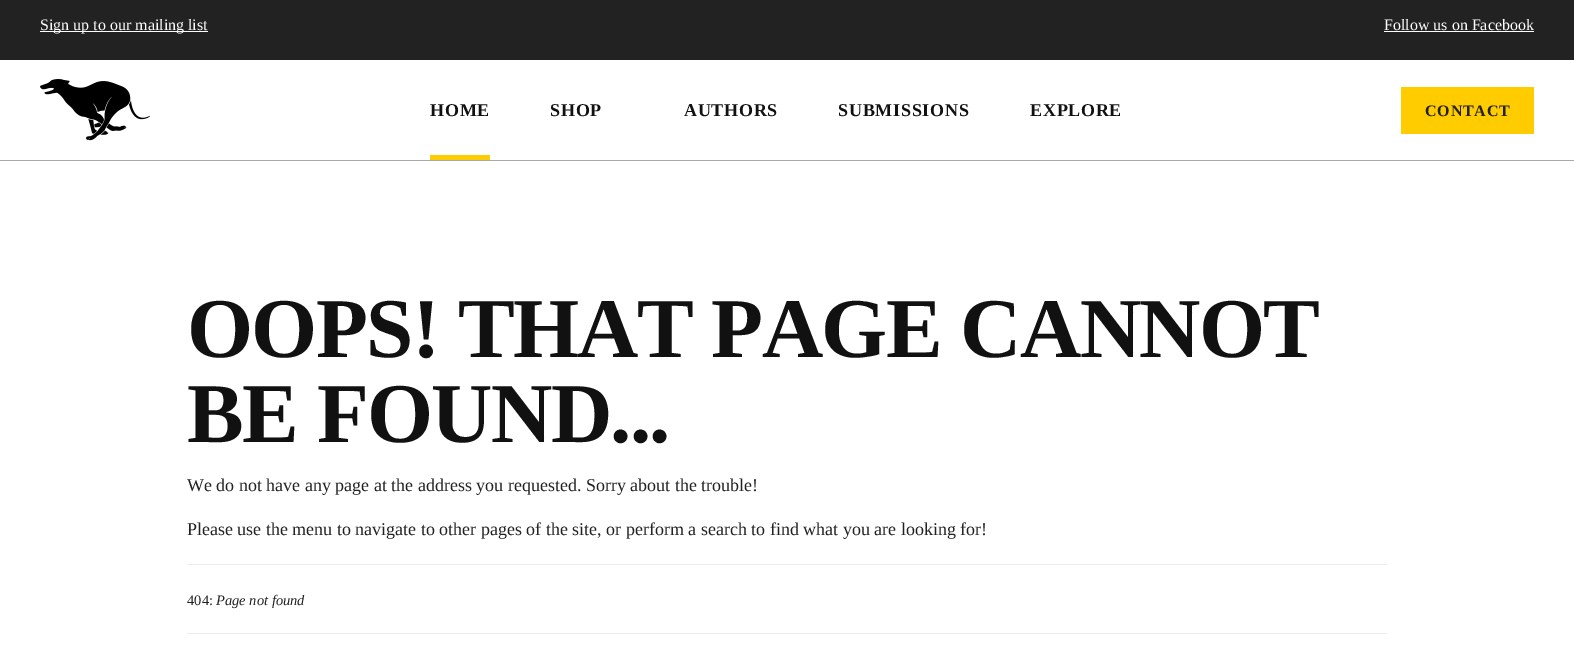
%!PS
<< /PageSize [1574 662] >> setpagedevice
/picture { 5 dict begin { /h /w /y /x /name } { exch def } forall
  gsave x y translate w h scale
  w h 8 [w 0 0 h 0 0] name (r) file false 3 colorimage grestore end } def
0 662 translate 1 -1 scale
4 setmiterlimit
1 setgray
0 0 1574 662 rectfill
0.133 setgray
0 0 1574 60 rectfill
1 setgray
40 31 168 1 rectfill
/LiberationSerif-Regular [16 0 0 -16 0 0] selectfont
40 30 moveto (Sign up to our mailing list) show
1384 30 moveto (Follow us on Facebook) show
1384 31 150 1 rectfill
0.655 0.663 0.675 setrgbcolor
0 160 1574 1 rectfill
(img1.rgb) 40 79 110 62 picture
/LiberationSerif-Bold [18 0 0 -18 0 0] selectfont
0.067 setgray
430 116 moveto 0.75 0 (HOME) ashow
1 0.8 0 setrgbcolor
430 155 60 5 rectfill
0.067 setgray
550 116 moveto 0.75 0 (SHOP) ashow
684 116 moveto 0.75 0 (AUTHORS) ashow
838 116 moveto 0.75 0 (SUBMISSIONS) ashow
1030 116 moveto 0.75 0 (EXPLORE) ashow
1 0.8 0 setrgbcolor
1401 87 133 47 rectfill
/LiberationSerif-Bold [16 0 0 -16 0 0] selectfont
0.133 setgray
1425 116 moveto 0.75 0 (CONTACT) ashow
/LiberationSerif-Bold [85 0 0 -85 0 0] selectfont
0.067 setgray
187 357 moveto -1.7 0 (OOPS! THAT PAGE CANNOT) ashow
187 442 moveto -1.7 0 (BE FOUND...) ashow
/LiberationSerif-Regular [18 0 0 -18 0 0] selectfont
0.133 setgray
187 491 moveto (We do not have any page at the address you requested. Sorry about the trouble!) show
187 535 moveto (Please use the menu to navigate to other pages of the site, or perform a search to find what you are looking for!) show
0.929 setgray
187 564 1200 1 rectfill
/LiberationSerif-Regular [14.5 0 0 -14.5 0 0] selectfont
0.133 setgray
187 605 moveto (404:) show
/LiberationSerif-Italic [14.5 0 0 -14.5 0 0] selectfont
216 605 moveto (Page not found) show
0.929 setgray
187 633 1200 1 rectfill
showpage
